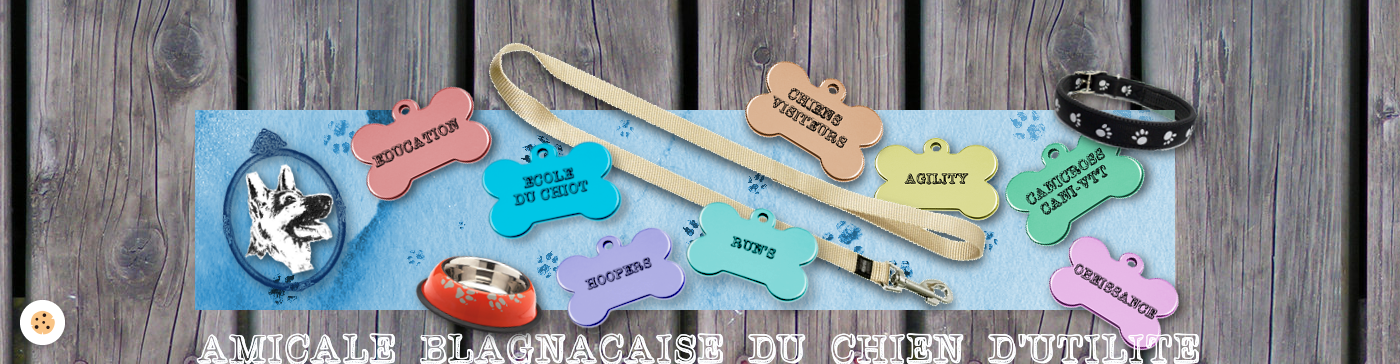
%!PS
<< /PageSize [1400 364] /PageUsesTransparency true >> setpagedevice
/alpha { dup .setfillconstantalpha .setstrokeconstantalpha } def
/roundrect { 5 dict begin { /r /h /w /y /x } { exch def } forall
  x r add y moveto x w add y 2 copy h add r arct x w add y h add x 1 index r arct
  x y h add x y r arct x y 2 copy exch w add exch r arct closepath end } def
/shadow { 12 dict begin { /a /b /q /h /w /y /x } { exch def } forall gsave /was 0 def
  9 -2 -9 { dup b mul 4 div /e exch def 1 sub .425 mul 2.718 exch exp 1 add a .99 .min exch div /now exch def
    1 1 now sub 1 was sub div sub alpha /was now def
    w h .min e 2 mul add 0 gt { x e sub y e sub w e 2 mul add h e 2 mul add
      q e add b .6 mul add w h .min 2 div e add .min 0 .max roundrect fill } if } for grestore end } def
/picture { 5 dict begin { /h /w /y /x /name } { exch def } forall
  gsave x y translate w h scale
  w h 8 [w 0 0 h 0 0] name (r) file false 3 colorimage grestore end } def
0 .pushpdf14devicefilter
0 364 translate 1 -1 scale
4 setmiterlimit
1 setgray
0 0 1400 364 rectfill
(img1.rgb) 0 0 1400 364 picture
0 setgray
20 303 45 45 22.5 5 0.24 shadow
1 setgray
newpath 42.5 322.5 22.5 0 360 arc closepath fill
(img2.rgb) 30 310 25 25 picture
(img3.rgb) 195 40 1013 324 picture
.poppdf14devicefilter showpage
